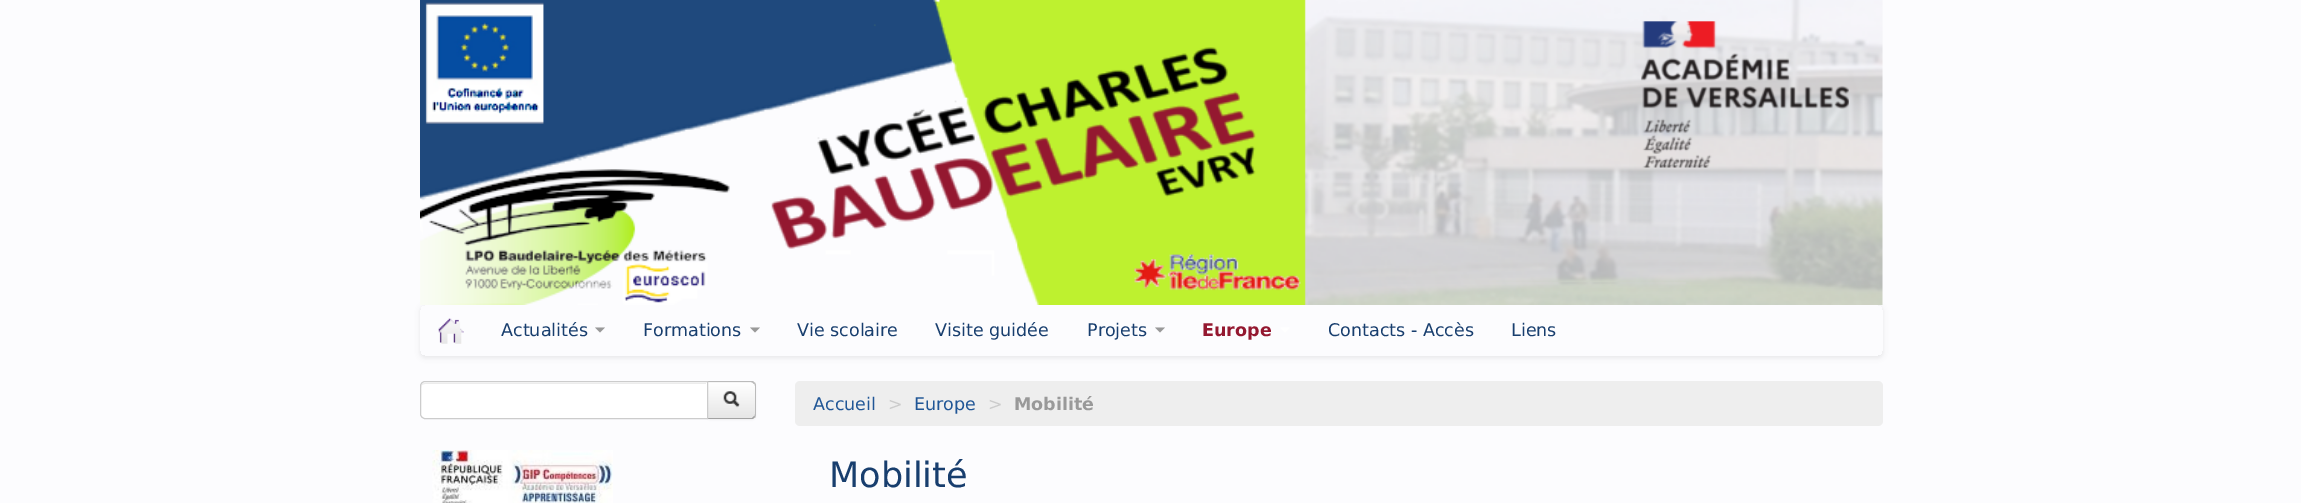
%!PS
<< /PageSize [2301 503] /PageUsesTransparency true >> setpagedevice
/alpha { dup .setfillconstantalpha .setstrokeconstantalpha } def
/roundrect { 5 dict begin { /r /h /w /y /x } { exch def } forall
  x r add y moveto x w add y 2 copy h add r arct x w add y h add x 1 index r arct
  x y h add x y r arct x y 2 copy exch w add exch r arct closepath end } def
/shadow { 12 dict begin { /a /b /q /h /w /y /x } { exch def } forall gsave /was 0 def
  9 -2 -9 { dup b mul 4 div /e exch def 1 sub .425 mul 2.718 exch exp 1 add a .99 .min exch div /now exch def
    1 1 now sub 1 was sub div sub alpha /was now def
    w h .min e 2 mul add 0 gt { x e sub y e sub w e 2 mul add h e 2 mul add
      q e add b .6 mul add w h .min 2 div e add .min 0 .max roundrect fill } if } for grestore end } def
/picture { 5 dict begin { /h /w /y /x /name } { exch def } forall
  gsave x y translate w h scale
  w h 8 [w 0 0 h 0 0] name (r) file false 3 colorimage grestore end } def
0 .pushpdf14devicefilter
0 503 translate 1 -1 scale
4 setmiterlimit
0.988 0.988 0.996 setrgbcolor
0 0 2301 503 rectfill
gsave
newpath 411 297 moveto 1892 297 lineto 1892 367 lineto 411 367 lineto closepath 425 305 moveto 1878 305 lineto 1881 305 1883 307 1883 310 curveto 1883 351 lineto 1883 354 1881 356 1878 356 curveto 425 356 lineto 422 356 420 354 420 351 curveto 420 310 lineto 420 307 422 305 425 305 curveto closepath eoclip newpath
0 setgray
420 306 1463 52 5 2.5 0.07 shadow
grestore
621 303 1260 2 rectfill
(img1.rgb) 420 0 1463 305 picture
(img2.rgb) 1641 21 208 147 picture
(img3.rgb) 438 318 26 26 picture
/DejaVuSans-Regular [17.5 0 0 -17.5 0 0] selectfont
0.094 0.243 0.431 setrgbcolor
501 336 moveto (Actualités) show
0.6 setgray
newpath 595 327.5 moveto 605 327.5 lineto 600 332.5 lineto closepath fill
0.094 0.243 0.431 setrgbcolor
643 336 moveto (Formations) show
0.6 setgray
newpath 750 327.5 moveto 760 327.5 lineto 755 332.5 lineto closepath fill
0.094 0.243 0.431 setrgbcolor
797 336 moveto (Vie scolaire) show
935 336 moveto (Visite guidée) show
1087 336 moveto (Projets) show
0.6 setgray
newpath 1155 327.5 moveto 1165 327.5 lineto 1160 332.5 lineto closepath fill
/DejaVuSans-Bold [17.5 0 0 -17.5 0 0] selectfont
0.58 0.094 0.188 setrgbcolor
1202 336 moveto (Europe) show
1 setgray
newpath 1280 327.5 moveto 1290 327.5 lineto 1285 332.5 lineto closepath fill
/DejaVuSans-Regular [17.5 0 0 -17.5 0 0] selectfont
0.094 0.243 0.431 setrgbcolor
1328 336 moveto (Contacts - Accès) show
1511 336 moveto (Liens) show
0 setgray
706 383 50 37 5 1 0.05 shadow
0.961 setgray
newpath 706 381 moveto 751 381 lineto 754 381 756 383 756 386 curveto 756 414 lineto 756 417 754 419 751 419 curveto 706 419 lineto closepath fill
gsave
newpath 706 381 moveto 751 381 lineto 754 381 756 383 756 386 curveto 756 414 lineto 756 417 754 419 751 419 curveto 706 419 lineto closepath clip newpath
gsave newpath 708 383 moveto 756 383 lineto 756 418 lineto 708 418 lineto closepath clip newpath
<< /ShadingType 2 /ColorSpace /DeviceRGB /Coords [731 383 731 418] /Extend [true true] /Function << /FunctionType 2 /Domain [0 1] /C0 [1 1 1] /C1 [0.902 0.902 0.902] /N 1 >> >> shfill grestore
grestore
0.733 setgray
newpath 708 382 moveto 708 383 lineto 706 381 lineto 753 381 lineto 755 383 lineto 754 384 lineto 753 383 752 382 751 382 curveto closepath fill
newpath 755 382.5 moveto 755.5 383.5 756 384.5 756 386 curveto 756 414 lineto 756 415.5 755.5 416.5 755 417.5 curveto 754 416.5 lineto 754.5 416 755 415 755 414 curveto 755 386 lineto 755 385 754.5 384 754 383.5 curveto closepath fill
0.635 setgray
newpath 755 417 moveto 753 419 lineto 706 419 lineto 708 417 lineto 708 418 lineto 752 418 lineto 754 416 lineto closepath fill
1 setgray
newpath 425 381 moveto 708 381 lineto 708 419 lineto 425 419 lineto 422 419 420 417 420 414 curveto 420 386 lineto 420 383 422 381 425 381 curveto closepath fill
0.925 setgray
newpath 425 384 moveto 706 384 lineto 706 383 lineto 425 383 lineto 422 383 421 385 421 388 curveto 421 385 423 384 425 384 curveto closepath fill
0.8 setgray
newpath 425 381.5 moveto 707.5 381.5 lineto 707.5 418.5 lineto 425 418.5 lineto 422.5 418.5 420.5 416.5 420.5 414 curveto 420.5 386 lineto 420.5 383.5 422.5 381.5 425 381.5 curveto closepath stroke
(img4.rgb) 723 391 17 17 picture
(img5.rgb) 432 450 181 53 picture
0.933 setgray
795 381 1088 45 5 roundrect fill
0.125 0.337 0.588 setrgbcolor
813 410 moveto (Accueil) show
0.8 setgray
888 410 moveto (>) show
0.125 0.337 0.588 setrgbcolor
914 410 moveto (Europe) show
0.8 setgray
988 410 moveto (>) show
/DejaVuSans-Bold [17.5 0 0 -17.5 0 0] selectfont
0.6 setgray
1014 410 moveto (Mobilité) show
/DejaVuSans-Regular [35 0 0 -35 0 0] selectfont
0.094 0.243 0.431 setrgbcolor
829 487 moveto (Mobilité) show
.poppdf14devicefilter showpage
